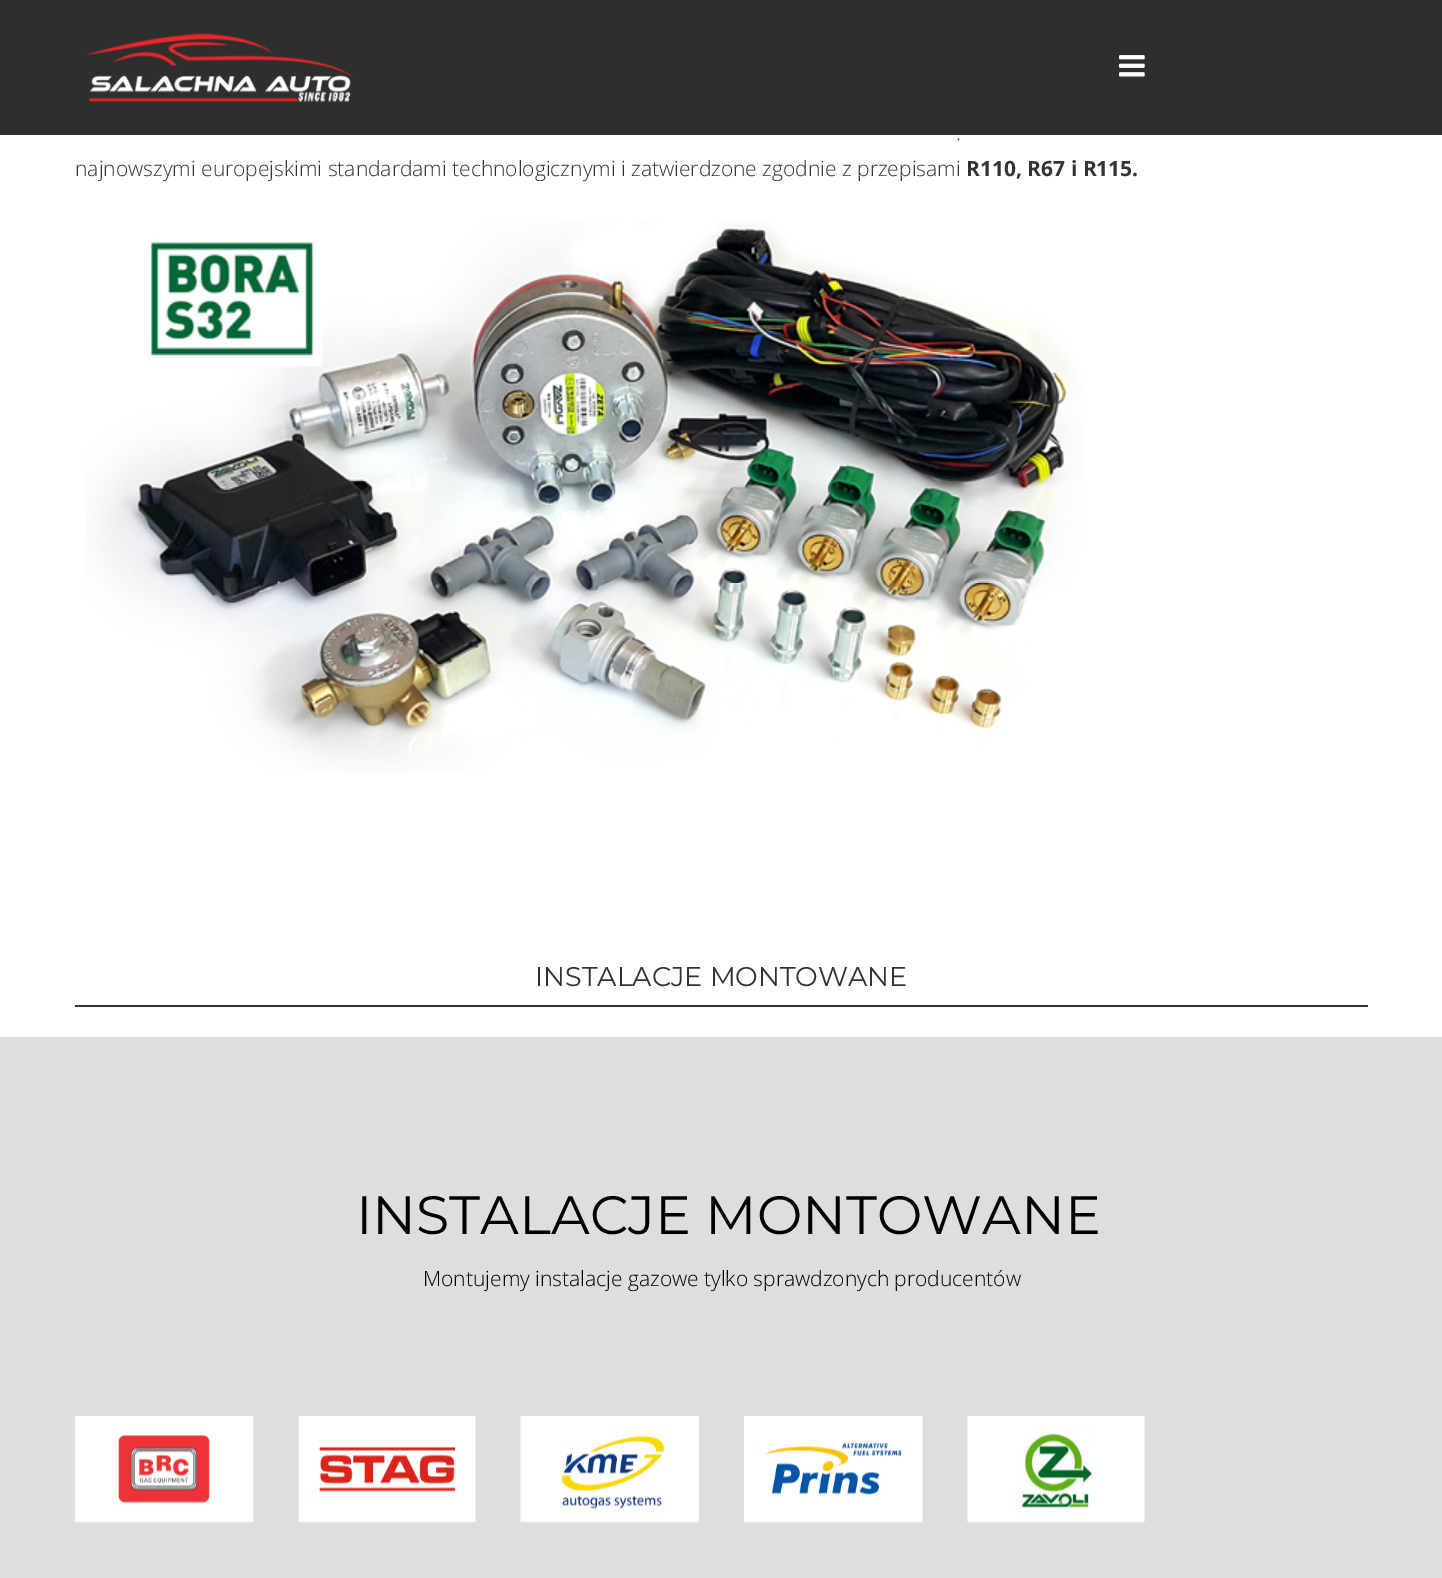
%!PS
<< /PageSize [1442 1578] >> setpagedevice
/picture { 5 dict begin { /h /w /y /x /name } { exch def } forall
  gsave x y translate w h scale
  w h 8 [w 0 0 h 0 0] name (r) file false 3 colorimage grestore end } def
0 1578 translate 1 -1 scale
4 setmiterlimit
1 setgray
0 0 1442 1578 rectfill
0.18 setgray
0 0 1442 135 rectfill
(img1.rgb) 84 33 272 69 picture
(img2.rgb) 1119 55 26 22 picture
/OpenSans-Light [21 0 0 -21 0 0] selectfont
0.2 setgray
956 140 moveto 1 0 32 (.) widthshow
75 176 moveto (najnowszymi europejskimi standardami technologicznymi i zatwierdzone zgodnie z przepisami) show
/OpenSans-Bold [21 0 0 -21 0 0] selectfont
966 176 moveto (R110, R67 i R115.) show
(img3.rgb) 85 220 999 553 picture
75 1005 1293 2 rectfill
/Montserrat-Regular [27 0 0 -27 0 0] selectfont
535 986 moveto (INSTALACJE MONTOWANE) show
0.871 setgray
0 1037 1442 541 rectfill
/Montserrat-Regular [54 0 0 -54 0 0] selectfont
0 setgray
356 1234 moveto (INSTALACJE MONTOWANE) show
/OpenSans-Light [21 0 0 -21 0 0] selectfont
423 1286 moveto (Montujemy instalacje gazowe tylko sprawdzonych producentów) show
(img4.rgb) 75 1416 179 107 picture
(img5.rgb) 298 1416 178 107 picture
(img6.rgb) 520 1416 179 107 picture
(img7.rgb) 744 1416 179 107 picture
(img8.rgb) 967 1416 178 107 picture
showpage
